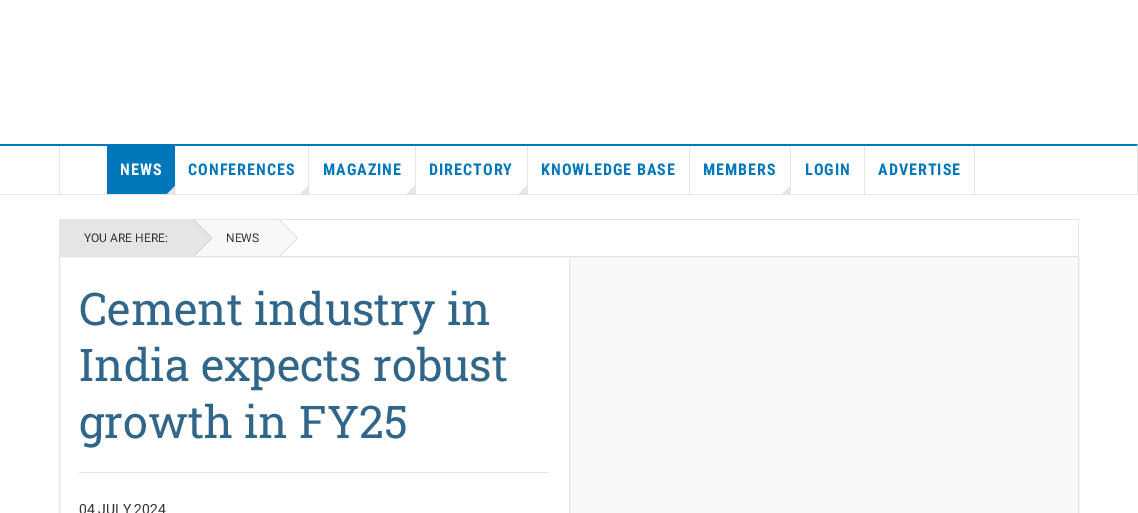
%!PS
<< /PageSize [1138 513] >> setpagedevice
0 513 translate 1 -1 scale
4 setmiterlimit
1 setgray
0 0 1138 513 rectfill
0 0.467 0.733 setrgbcolor
newpath 0 144 moveto 1138 144 lineto 1137 146 lineto 0 146 lineto closepath fill
0.898 setgray
newpath 1138 144 moveto 1138 195 lineto 1137 194 lineto 1137 146 lineto closepath fill
0 194 1138 1 rectfill
59 146 1 48 rectfill
0 0.467 0.733 setrgbcolor
107 146 68 48 rectfill
/RobotoCondensed-Bold [16 0 0 -16 0 0] selectfont
1 setgray
120 175 moveto 1 0 (NEWS) ashow
0.898 setgray
newpath 167 194 moveto 175.5 185.5 lineto 175.5 194 lineto closepath fill
308 146 1 48 rectfill
0 0.467 0.733 setrgbcolor
188 175 moveto 1 0 (CONFERENCES) ashow
0.898 setgray
newpath 300 194 moveto 308.5 185.5 lineto 308.5 194 lineto closepath fill
415 146 1 48 rectfill
0 0.467 0.733 setrgbcolor
323 175 moveto 1 0 (MAGAZINE) ashow
0.898 setgray
newpath 406.5 194 moveto 415 185.5 lineto 415 194 lineto closepath fill
527 146 1 48 rectfill
0 0.467 0.733 setrgbcolor
429 175 moveto 1 0 (DIRECTORY) ashow
0.898 setgray
newpath 518.5 194 moveto 527 185.5 lineto 527 194 lineto closepath fill
689 146 1 48 rectfill
0 0.467 0.733 setrgbcolor
541 175 moveto 1 0 (KNOWLEDGE BASE) ashow
0.898 setgray
790 146 1 48 rectfill
0 0.467 0.733 setrgbcolor
703 175 moveto 1 0 (MEMBERS) ashow
0.898 setgray
newpath 782 194 moveto 790.5 185.5 lineto 790.5 194 lineto closepath fill
864 146 1 48 rectfill
0 0.467 0.733 setrgbcolor
805 175 moveto 1 0 (LOGIN) ashow
0.898 setgray
974 146 1 48 rectfill
0 0.467 0.733 setrgbcolor
878 175 moveto 1 0 (ADVERTISE) ashow
0.898 setgray
59 219 1020 1 rectfill
1078 219 1 37 rectfill
59 219 1 37 rectfill
60 220 135 36 rectfill
/Roboto-Regular [12 0 0 -12 0 0] selectfont
0.2 setgray
84 242 moveto (YOU ARE HERE:) show
0.973 setgray
195 220 84 36 rectfill
0.8 setgray
newpath 194.5 220 moveto 194 220.5 lineto 211.5 238 lineto 194 255.5 lineto 194.5 256 lineto 212.5 238 lineto closepath fill
0.898 setgray
newpath 193.5 220 moveto 211.5 238 lineto 193.5 256 lineto 175.5 238 lineto closepath fill
279 220 1 36 rectfill
0.2 setgray
226 242 moveto (NEWS) show
0.8 setgray
newpath 280 220 moveto 279.5 220.5 lineto 297 238 lineto 279.5 255.5 lineto 280 256 lineto 298 238 lineto closepath fill
0.973 setgray
newpath 279 220 moveto 297 238 lineto 279 256 lineto 261 238 lineto closepath fill
0.898 setgray
59.5 256.5 1019 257 rectstroke
79 472 470 1 rectfill
/RobotoSlab-Regular [45 0 0 -45 0 0] selectfont
0.188 0.4 0.537 setrgbcolor
79 325 moveto (Cement industry in) show
79 381 moveto (India expects robust) show
79 438 moveto (growth in FY25) show
/Roboto-Regular [14 0 0 -14 0 0] selectfont
0.2 setgray
79 514 moveto (04 JULY 2024) show
0.973 setgray
newpath 569.5 256.5 moveto 1078.5 256.5 lineto 1078.5 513.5 lineto 569.5 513.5 lineto closepath gsave fill grestore
0.898 setgray
stroke
showpage
